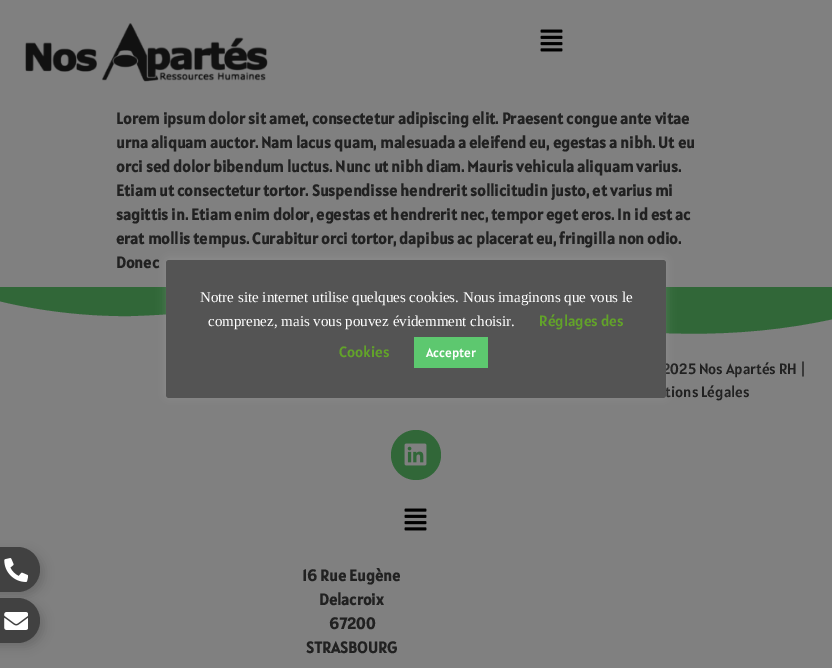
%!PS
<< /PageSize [832 668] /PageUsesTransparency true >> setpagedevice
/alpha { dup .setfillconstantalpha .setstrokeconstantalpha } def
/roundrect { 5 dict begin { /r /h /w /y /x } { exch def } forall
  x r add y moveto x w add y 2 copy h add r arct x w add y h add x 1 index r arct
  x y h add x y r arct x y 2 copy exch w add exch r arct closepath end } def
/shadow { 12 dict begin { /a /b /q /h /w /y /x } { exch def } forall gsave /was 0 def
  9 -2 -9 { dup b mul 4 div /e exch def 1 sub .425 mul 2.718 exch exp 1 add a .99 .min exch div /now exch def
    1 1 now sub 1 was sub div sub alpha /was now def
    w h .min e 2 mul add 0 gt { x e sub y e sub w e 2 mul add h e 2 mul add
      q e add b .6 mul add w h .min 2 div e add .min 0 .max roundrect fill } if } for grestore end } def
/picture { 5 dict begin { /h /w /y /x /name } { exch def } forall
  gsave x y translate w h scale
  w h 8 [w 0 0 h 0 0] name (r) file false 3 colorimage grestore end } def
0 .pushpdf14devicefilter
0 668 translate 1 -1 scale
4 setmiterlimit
0.502 setgray
0 0 832 668 rectfill
(img1.rgb) 25 23 243 59 picture
(img2.rgb) 540 29 23 23 picture
/Alatsi-Bold [16 0 0 -16 0 0] selectfont
0.129 setgray
116 124 moveto (Lorem ipsum dolor sit amet, consectetur adipiscing elit. Praesent congue ante vitae) show
116 148 moveto (urna aliquam auctor. Nam lacus quam, malesuada a eleifend eu, egestas a nibh. Ut eu) show
116 172 moveto (orci sed dolor bibendum luctus. Nunc ut nibh diam. Mauris vehicula aliquam varius.) show
116 196 moveto (Etiam ut consectetur tortor. Suspendisse hendrerit sollicitudin justo, et varius mi) show
116 220 moveto (sagittis in. Etiam enim dolor, egestas et hendrerit nec, tempor eget eros. In id est ac) show
116 244 moveto (erat mollis tempus. Curabitur orci tortor, dapibus ac placerat eu, fringilla non odio.) show
116 268 moveto (Donec) show
0.192 0.404 0.22 setrgbcolor
newpath 351 290 moveto 416 286 479 307 542 319 curveto 636 337 739 340 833 319 curveto 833 287 lineto -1 287 lineto -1 301 lineto -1 301 59 317 131 316 curveto 164 315 209 312 243 305 curveto 261 301 287 296 309 294 curveto 332 291 342 291 351 290 curveto closepath fill
/Alatsi-Regular [15 0 0 -15 0 0] selectfont
0.129 setgray
662 374 moveto (2025 Nos Apartés RH |) show
665 397 moveto (tions Légales) show
0.192 0.404 0.22 setrgbcolor
newpath 416 455 25 0 360 arc closepath fill
(img3.rgb) 404 443 23 23 picture
(img2.rgb) 404 508 23 23 picture
/Alatsi-Bold [16 0 0 -16 0 0] selectfont
0.129 setgray
302 581 moveto (16 Rue Eugène) show
319 605 moveto (Delacroix) show
329 629 moveto (67200) show
306 653 moveto (STRASBOURG) show
0.675 0.671 0.671 setrgbcolor
166 259 500 138 3 5 0.3 shadow
0.329 setgray
166 260 500 138 3 roundrect fill
/LiberationSerif-Regular [15 0 0 -15 0 0] selectfont
1 setgray
200 302 moveto (Notre site internet utilise quelques cookies. Nous imaginons que vous le) show
208 326 moveto (comprenez, mais vous pouvez évidemment choisir.) show
/Alatsi-Regular [15 0 0 -15 0 0] selectfont
0.384 0.639 0.161 setrgbcolor
539 326 moveto (Réglages des) show
339 357 moveto (Cookies) show
0.365 0.784 0.435 setrgbcolor
414 337 74 31 rectfill
/Alatsi-Regular [13 0 0 -13 0 0] selectfont
1 setgray
426 357 moveto (Accepter) show
0 setgray
-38 551 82 45 22.5 5 0.15 shadow
0.255 setgray
newpath -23 547 moveto 17.5 547 lineto 30 547 40 557 40 569.5 curveto 40 582 30 592 17.5 592 curveto -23 592 lineto closepath fill
(img4.rgb) 4 558 24 24 picture
0 setgray
-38 602 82 45 22.5 5 0.15 shadow
0.255 setgray
newpath -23 598 moveto 17.5 598 lineto 30 598 40 608 40 620.5 curveto 40 633 30 643 17.5 643 curveto -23 643 lineto closepath fill
(img5.rgb) 4 612 24 18 picture
.poppdf14devicefilter showpage
